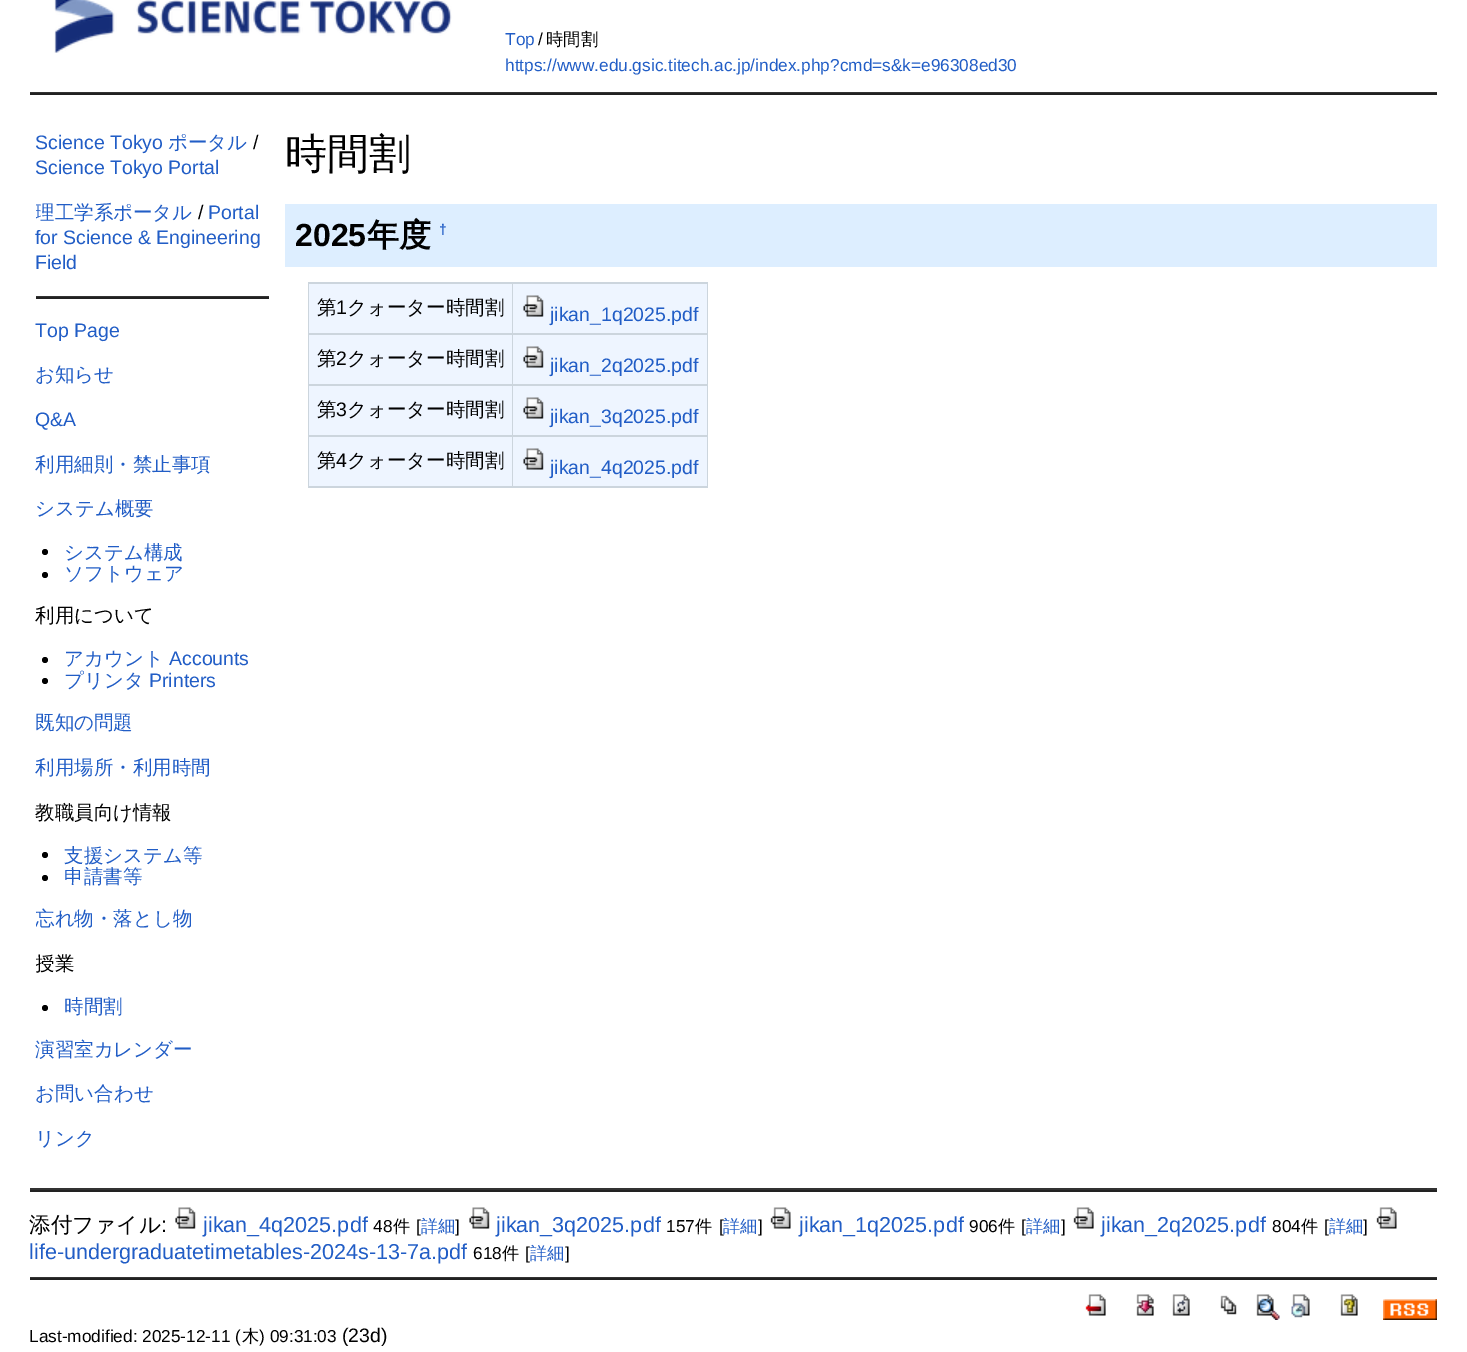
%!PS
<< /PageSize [1467 1352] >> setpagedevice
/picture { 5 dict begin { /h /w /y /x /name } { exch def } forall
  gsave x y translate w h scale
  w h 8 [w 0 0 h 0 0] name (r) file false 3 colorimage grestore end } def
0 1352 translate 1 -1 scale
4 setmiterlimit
1 setgray
0 0 1467 1352 rectfill
(img1.rgb) 54 0 398 53 picture
/LiberationSans-Regular [17.25 0 0 -17.25 0 0] selectfont
0.129 0.365 0.776 setrgbcolor
505 45 moveto (Top) show
0 setgray
538 45 moveto (/) show
/WenQuanYiZenHei-Medium [17.25 0 0 -17.25 0 0] selectfont
546 45 moveto (時間割) show
/LiberationSans-Regular [17.25 0 0 -17.25 0 0] selectfont
0.129 0.365 0.776 setrgbcolor
505 71 moveto (https://www.edu.gsic.titech.ac.jp/index.php?cmd=s&k=e96308ed30) show
0.2 setgray
30 92 1407 1 rectfill
0.133 setgray
30 93 1407 2 rectfill
/LiberationSans-Regular [19.5 0 0 -19.5 0 0] selectfont
0.129 0.365 0.776 setrgbcolor
35 149 moveto (Science Tokyo) show
/WenQuanYiZenHei-Medium [19.5 0 0 -19.5 0 0] selectfont
168 149 moveto (ポータル) show
/LiberationSans-Regular [19.5 0 0 -19.5 0 0] selectfont
0 setgray
253 149 moveto (/) show
0.129 0.365 0.776 setrgbcolor
35 174 moveto (Science Tokyo Portal) show
gsave
36 111 233 1061 rectclip
/WenQuanYiZenHei-Medium [19.5 0 0 -19.5 0 0] selectfont
35 219 moveto (理工学系ポータル) show
grestore
0 setgray
198 219 moveto (/) show
0.129 0.365 0.776 setrgbcolor
208 219 moveto (Portal) show
35 244 moveto (for Science & Engineering) show
35 269 moveto (Field) show
0.2 setgray
36 296 233 1 rectfill
0.133 setgray
36 297 233 2 rectfill
0.129 0.365 0.776 setrgbcolor
35 337 moveto (Top Page) show
/WenQuanYiZenHei-Medium [19.5 0 0 -19.5 0 0] selectfont
35 381 moveto (お知らせ) show
/LiberationSans-Regular [19.5 0 0 -19.5 0 0] selectfont
35 426 moveto (Q&A) show
/WenQuanYiZenHei-Medium [19.5 0 0 -19.5 0 0] selectfont
35 471 moveto (利用細則・禁止事項) show
35 515 moveto (システム概要) show
0 setgray
newpath 45 552 3 0 360 arc closepath fill
0.129 0.365 0.776 setrgbcolor
64 559 moveto (システム構成) show
0 setgray
newpath 45 575 3 0 360 arc closepath fill
0.129 0.365 0.776 setrgbcolor
64 580 moveto (ソフトウェア) show
0 setgray
35 622 moveto (利用について) show
newpath 45 660 3 0 360 arc closepath fill
0.129 0.365 0.776 setrgbcolor
64 665 moveto (アカウント) show
/LiberationSans-Regular [19.5 0 0 -19.5 0 0] selectfont
169 665 moveto (Accounts) show
0 setgray
newpath 45 681 3 0 360 arc closepath fill
/WenQuanYiZenHei-Medium [19.5 0 0 -19.5 0 0] selectfont
0.129 0.365 0.776 setrgbcolor
64 687 moveto (プリンタ) show
/LiberationSans-Regular [19.5 0 0 -19.5 0 0] selectfont
149 687 moveto (Printers) show
/WenQuanYiZenHei-Medium [19.5 0 0 -19.5 0 0] selectfont
35 729 moveto (既知の問題) show
35 774 moveto (利用場所・利用時間) show
0 setgray
35 819 moveto (教職員向け情報) show
newpath 45 855 3 0 360 arc closepath fill
0.129 0.365 0.776 setrgbcolor
64 862 moveto (支援システム等) show
0 setgray
newpath 45 878 3 0 360 arc closepath fill
0.129 0.365 0.776 setrgbcolor
64 883 moveto (申請書等) show
gsave
36 111 233 1061 rectclip
35 925 moveto (忘れ物・落とし物) show
0 setgray
35 970 moveto (授業) show
grestore
0 setgray
newpath 45 1008 3 0 360 arc closepath fill
0.129 0.365 0.776 setrgbcolor
64 1013 moveto (時間割) show
35 1056 moveto (演習室カレンダー) show
35 1100 moveto (お問い合わせ) show
35 1145 moveto (リンク) show
/WenQuanYiZenHei-Medium [42 0 0 -42 0 0] selectfont
0 setgray
285 168 moveto (時間割) show
0.867 0.933 1 setrgbcolor
285 204 1152 63 rectfill
/LiberationSans-Bold [32 0 0 -32 0 0] selectfont
0 setgray
295 246 moveto (2025) show
/WenQuanYiZenHei-Bold [32 0 0 -32 0 0] selectfont
367 246 moveto (年度) show
/LiberationSans-Bold [14 0 0 -14 0 0] selectfont
0.129 0.365 0.776 setrgbcolor
439 234 moveto (†) show
0.8 0.835 0.867 setrgbcolor
308 282 400 206 rectfill
0.933 0.961 1 setrgbcolor
309 284 203 49 rectfill
/WenQuanYiZenHei-Medium [19.5 0 0 -19.5 0 0] selectfont
0 setgray
317 314 moveto (第) show
/LiberationSans-Regular [19.5 0 0 -19.5 0 0] selectfont
336 314 moveto (1) show
/WenQuanYiZenHei-Medium [19.5 0 0 -19.5 0 0] selectfont
347 314 moveto (クォーター時間割) show
0.933 0.961 1 setrgbcolor
513 284 194 49 rectfill
(img2.rgb) 523 295 21 22 picture
/LiberationSans-Regular [19.5 0 0 -19.5 0 0] selectfont
0.129 0.365 0.776 setrgbcolor
550 321 moveto (jikan_1q2025.pdf) show
0.933 0.961 1 setrgbcolor
309 335 203 49 rectfill
/WenQuanYiZenHei-Medium [19.5 0 0 -19.5 0 0] selectfont
0 setgray
317 365 moveto (第) show
/LiberationSans-Regular [19.5 0 0 -19.5 0 0] selectfont
336 365 moveto (2) show
/WenQuanYiZenHei-Medium [19.5 0 0 -19.5 0 0] selectfont
347 365 moveto (クォーター時間割) show
0.933 0.961 1 setrgbcolor
513 335 194 49 rectfill
(img2.rgb) 523 346 21 22 picture
/LiberationSans-Regular [19.5 0 0 -19.5 0 0] selectfont
0.129 0.365 0.776 setrgbcolor
550 372 moveto (jikan_2q2025.pdf) show
0.933 0.961 1 setrgbcolor
309 386 203 49 rectfill
/WenQuanYiZenHei-Medium [19.5 0 0 -19.5 0 0] selectfont
0 setgray
317 416 moveto (第) show
/LiberationSans-Regular [19.5 0 0 -19.5 0 0] selectfont
336 416 moveto (3) show
/WenQuanYiZenHei-Medium [19.5 0 0 -19.5 0 0] selectfont
347 416 moveto (クォーター時間割) show
0.933 0.961 1 setrgbcolor
513 386 194 49 rectfill
(img2.rgb) 523 397 21 22 picture
/LiberationSans-Regular [19.5 0 0 -19.5 0 0] selectfont
0.129 0.365 0.776 setrgbcolor
550 423 moveto (jikan_3q2025.pdf) show
0.933 0.961 1 setrgbcolor
309 437 203 49 rectfill
/WenQuanYiZenHei-Medium [19.5 0 0 -19.5 0 0] selectfont
0 setgray
317 467 moveto (第) show
/LiberationSans-Regular [19.5 0 0 -19.5 0 0] selectfont
336 467 moveto (4) show
/WenQuanYiZenHei-Medium [19.5 0 0 -19.5 0 0] selectfont
347 467 moveto (クォーター時間割) show
0.933 0.961 1 setrgbcolor
513 437 194 49 rectfill
(img2.rgb) 523 448 21 22 picture
/LiberationSans-Regular [19.5 0 0 -19.5 0 0] selectfont
0.129 0.365 0.776 setrgbcolor
550 474 moveto (jikan_4q2025.pdf) show
0.2 setgray
30 1188 1407 2 rectfill
0.133 setgray
30 1190 1407 2 rectfill
/WenQuanYiZenHei-Medium [21.6 0 0 -21.6 0 0] selectfont
0 setgray
29 1232 moveto (添付ファイル) show
/LiberationSans-Regular [21.6 0 0 -21.6 0 0] selectfont
161 1232 moveto (:) show
(img3.rgb) 175 1207 21 22 picture
0.129 0.365 0.776 setrgbcolor
203 1232 moveto (jikan_4q2025.pdf) show
/LiberationSans-Regular [17.25 0 0 -17.25 0 0] selectfont
0 setgray
373 1232 moveto (48) show
/WenQuanYiZenHei-Medium [17.25 0 0 -17.25 0 0] selectfont
393 1232 moveto (件) show
/LiberationSans-Regular [17.25 0 0 -17.25 0 0] selectfont
416 1232 moveto ([) show
/WenQuanYiZenHei-Medium [17.25 0 0 -17.25 0 0] selectfont
0.129 0.365 0.776 setrgbcolor
421 1232 moveto (詳細) show
/LiberationSans-Regular [17.25 0 0 -17.25 0 0] selectfont
0 setgray
455 1232 moveto (]) show
(img3.rgb) 469 1207 21 22 picture
/LiberationSans-Regular [21.6 0 0 -21.6 0 0] selectfont
0.129 0.365 0.776 setrgbcolor
496 1232 moveto (jikan_3q2025.pdf) show
/LiberationSans-Regular [17.25 0 0 -17.25 0 0] selectfont
0 setgray
666 1232 moveto (157) show
/WenQuanYiZenHei-Medium [17.25 0 0 -17.25 0 0] selectfont
695 1232 moveto (件) show
/LiberationSans-Regular [17.25 0 0 -17.25 0 0] selectfont
719 1232 moveto ([) show
/WenQuanYiZenHei-Medium [17.25 0 0 -17.25 0 0] selectfont
0.129 0.365 0.776 setrgbcolor
723 1232 moveto (詳細) show
/LiberationSans-Regular [17.25 0 0 -17.25 0 0] selectfont
0 setgray
758 1232 moveto (]) show
(img4.rgb) 770 1207 21 22 picture
/LiberationSans-Regular [21.6 0 0 -21.6 0 0] selectfont
0.129 0.365 0.776 setrgbcolor
799 1232 moveto (jikan_1q2025.pdf) show
/LiberationSans-Regular [17.25 0 0 -17.25 0 0] selectfont
0 setgray
969 1232 moveto (906) show
/WenQuanYiZenHei-Medium [17.25 0 0 -17.25 0 0] selectfont
998 1232 moveto (件) show
/LiberationSans-Regular [17.25 0 0 -17.25 0 0] selectfont
1021 1232 moveto ([) show
/WenQuanYiZenHei-Medium [17.25 0 0 -17.25 0 0] selectfont
0.129 0.365 0.776 setrgbcolor
1026 1232 moveto (詳細) show
/LiberationSans-Regular [17.25 0 0 -17.25 0 0] selectfont
0 setgray
1061 1232 moveto (]) show
(img5.rgb) 1073 1207 21 22 picture
/LiberationSans-Regular [21.6 0 0 -21.6 0 0] selectfont
0.129 0.365 0.776 setrgbcolor
1101 1232 moveto (jikan_2q2025.pdf) show
/LiberationSans-Regular [17.25 0 0 -17.25 0 0] selectfont
0 setgray
1272 1232 moveto (804) show
/WenQuanYiZenHei-Medium [17.25 0 0 -17.25 0 0] selectfont
1301 1232 moveto (件) show
/LiberationSans-Regular [17.25 0 0 -17.25 0 0] selectfont
1324 1232 moveto ([) show
/WenQuanYiZenHei-Medium [17.25 0 0 -17.25 0 0] selectfont
0.129 0.365 0.776 setrgbcolor
1329 1232 moveto (詳細) show
/LiberationSans-Regular [17.25 0 0 -17.25 0 0] selectfont
0 setgray
1363 1232 moveto (]) show
(img4.rgb) 1376 1207 21 22 picture
/LiberationSans-Regular [21.6 0 0 -21.6 0 0] selectfont
0.129 0.365 0.776 setrgbcolor
29 1259 moveto (life-undergraduatetimetables-2024s-13-7a.pdf) show
/LiberationSans-Regular [17.25 0 0 -17.25 0 0] selectfont
0 setgray
473 1259 moveto (618) show
/WenQuanYiZenHei-Medium [17.25 0 0 -17.25 0 0] selectfont
502 1259 moveto (件) show
/LiberationSans-Regular [17.25 0 0 -17.25 0 0] selectfont
525 1259 moveto ([) show
/WenQuanYiZenHei-Medium [17.25 0 0 -17.25 0 0] selectfont
0.129 0.365 0.776 setrgbcolor
530 1259 moveto (詳細) show
/LiberationSans-Regular [17.25 0 0 -17.25 0 0] selectfont
0 setgray
565 1259 moveto (]) show
0.2 setgray
30 1277 1407 1 rectfill
0.133 setgray
30 1278 1407 2 rectfill
(img6.rgb) 1085 1294 21 22 picture
(img7.rgb) 1136 1294 18 22 picture
(img8.rgb) 1172 1294 18 22 picture
(img9.rgb) 1220 1295 17 20 picture
(img10.rgb) 1256 1294 24 26 picture
(img11.rgb) 1291 1294 19 24 picture
(img12.rgb) 1340 1294 18 22 picture
(img13.rgb) 1383 1299 54 21 picture
0 setgray
29 1342 moveto (Last-modified: 2025-12-11 \() show
/WenQuanYiZenHei-Medium [17.25 0 0 -17.25 0 0] selectfont
242 1342 moveto (木) show
/LiberationSans-Regular [17.25 0 0 -17.25 0 0] selectfont
259 1342 moveto (\) 09:31:03) show
/LiberationSans-Regular [19.5 0 0 -19.5 0 0] selectfont
342 1342 moveto (\(23d\)) show
showpage
